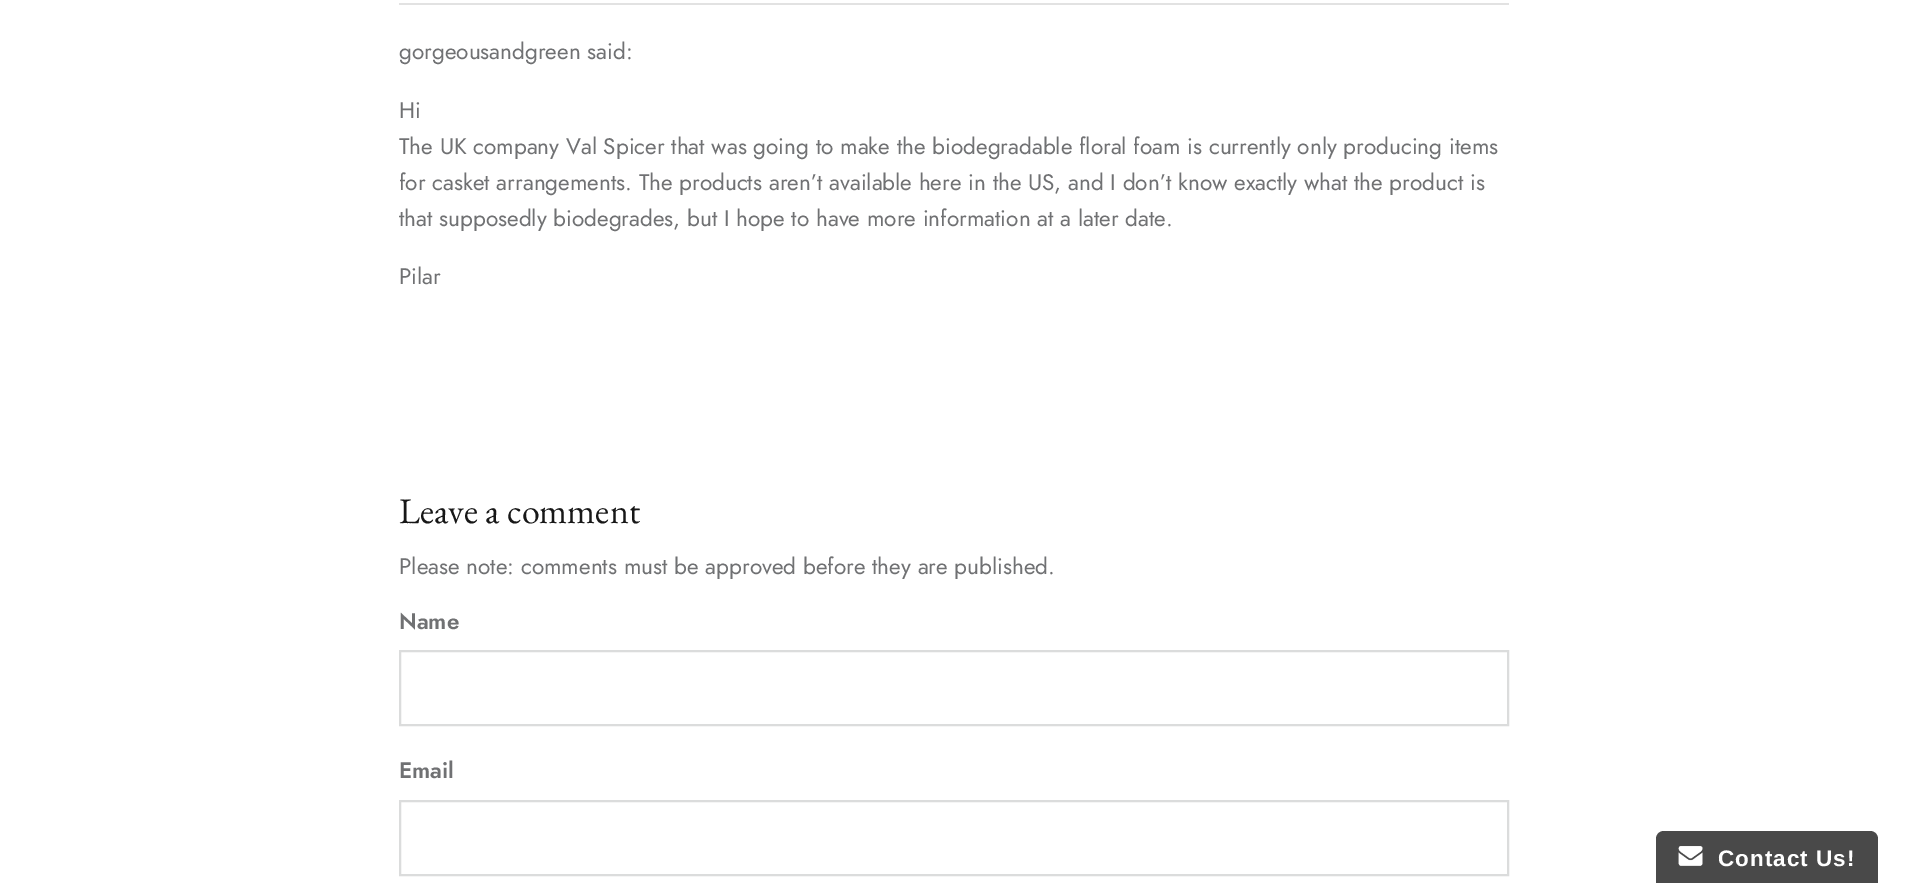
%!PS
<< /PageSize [1908 883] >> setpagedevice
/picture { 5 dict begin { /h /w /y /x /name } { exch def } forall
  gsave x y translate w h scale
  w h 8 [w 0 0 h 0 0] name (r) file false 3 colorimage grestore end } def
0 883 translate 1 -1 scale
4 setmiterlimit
1 setgray
0 0 1908 883 rectfill
0.886 setgray
399 3 1110 2 rectfill
/Jost-Regular [22.5 0 0 -22.5 0 0] selectfont
0.439 0.443 0.451 setrgbcolor
399 59 moveto (gorgeousandgreen said:) show
399 118 moveto (Hi) show
399 154 moveto (The UK company Val Spicer that was going to make the biodegradable floral foam is currently only producing items) show
399 190 moveto (for casket arrangements. The products aren’t available here in the US, and I don’t know exactly what the product is) show
399 226 moveto (that supposedly biodegrades, but I hope to have more information at a later date.) show
399 284 moveto (Pilar) show
/EBGaramond-Regular [36 0 0 -36 0 0] selectfont
0.09 setgray
399 523 moveto (Leave a comment) show
/Jost-Regular [22.5 0 0 -22.5 0 0] selectfont
0.439 0.443 0.451 setrgbcolor
399 574 moveto (Please note: comments must be approved before they are published.) show
/Jost-SemiBold [22.5 0 0 -22.5 0 0] selectfont
399 629 moveto (Name) show
0.859 0.863 0.863 setrgbcolor
2 setlinewidth
400 651 1108 74 rectstroke
0.439 0.443 0.451 setrgbcolor
399 778 moveto (Email) show
0.859 0.863 0.863 setrgbcolor
400 801 1108 74 rectstroke
0.286 setgray
newpath 1664 831 moveto 1870 831 lineto 1874.5 831 1878 834.5 1878 839 curveto 1878 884 lineto 1656 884 lineto 1656 839 lineto 1656 834.5 1659.5 831 1664 831 curveto closepath fill
(img1.rgb) 1678 846 25 20 picture
/LiberationSans-Bold [22.5 0 0 -22.5 0 0] selectfont
1 setgray
1718 866 moveto 1 0 (Contact Us!) ashow
showpage
